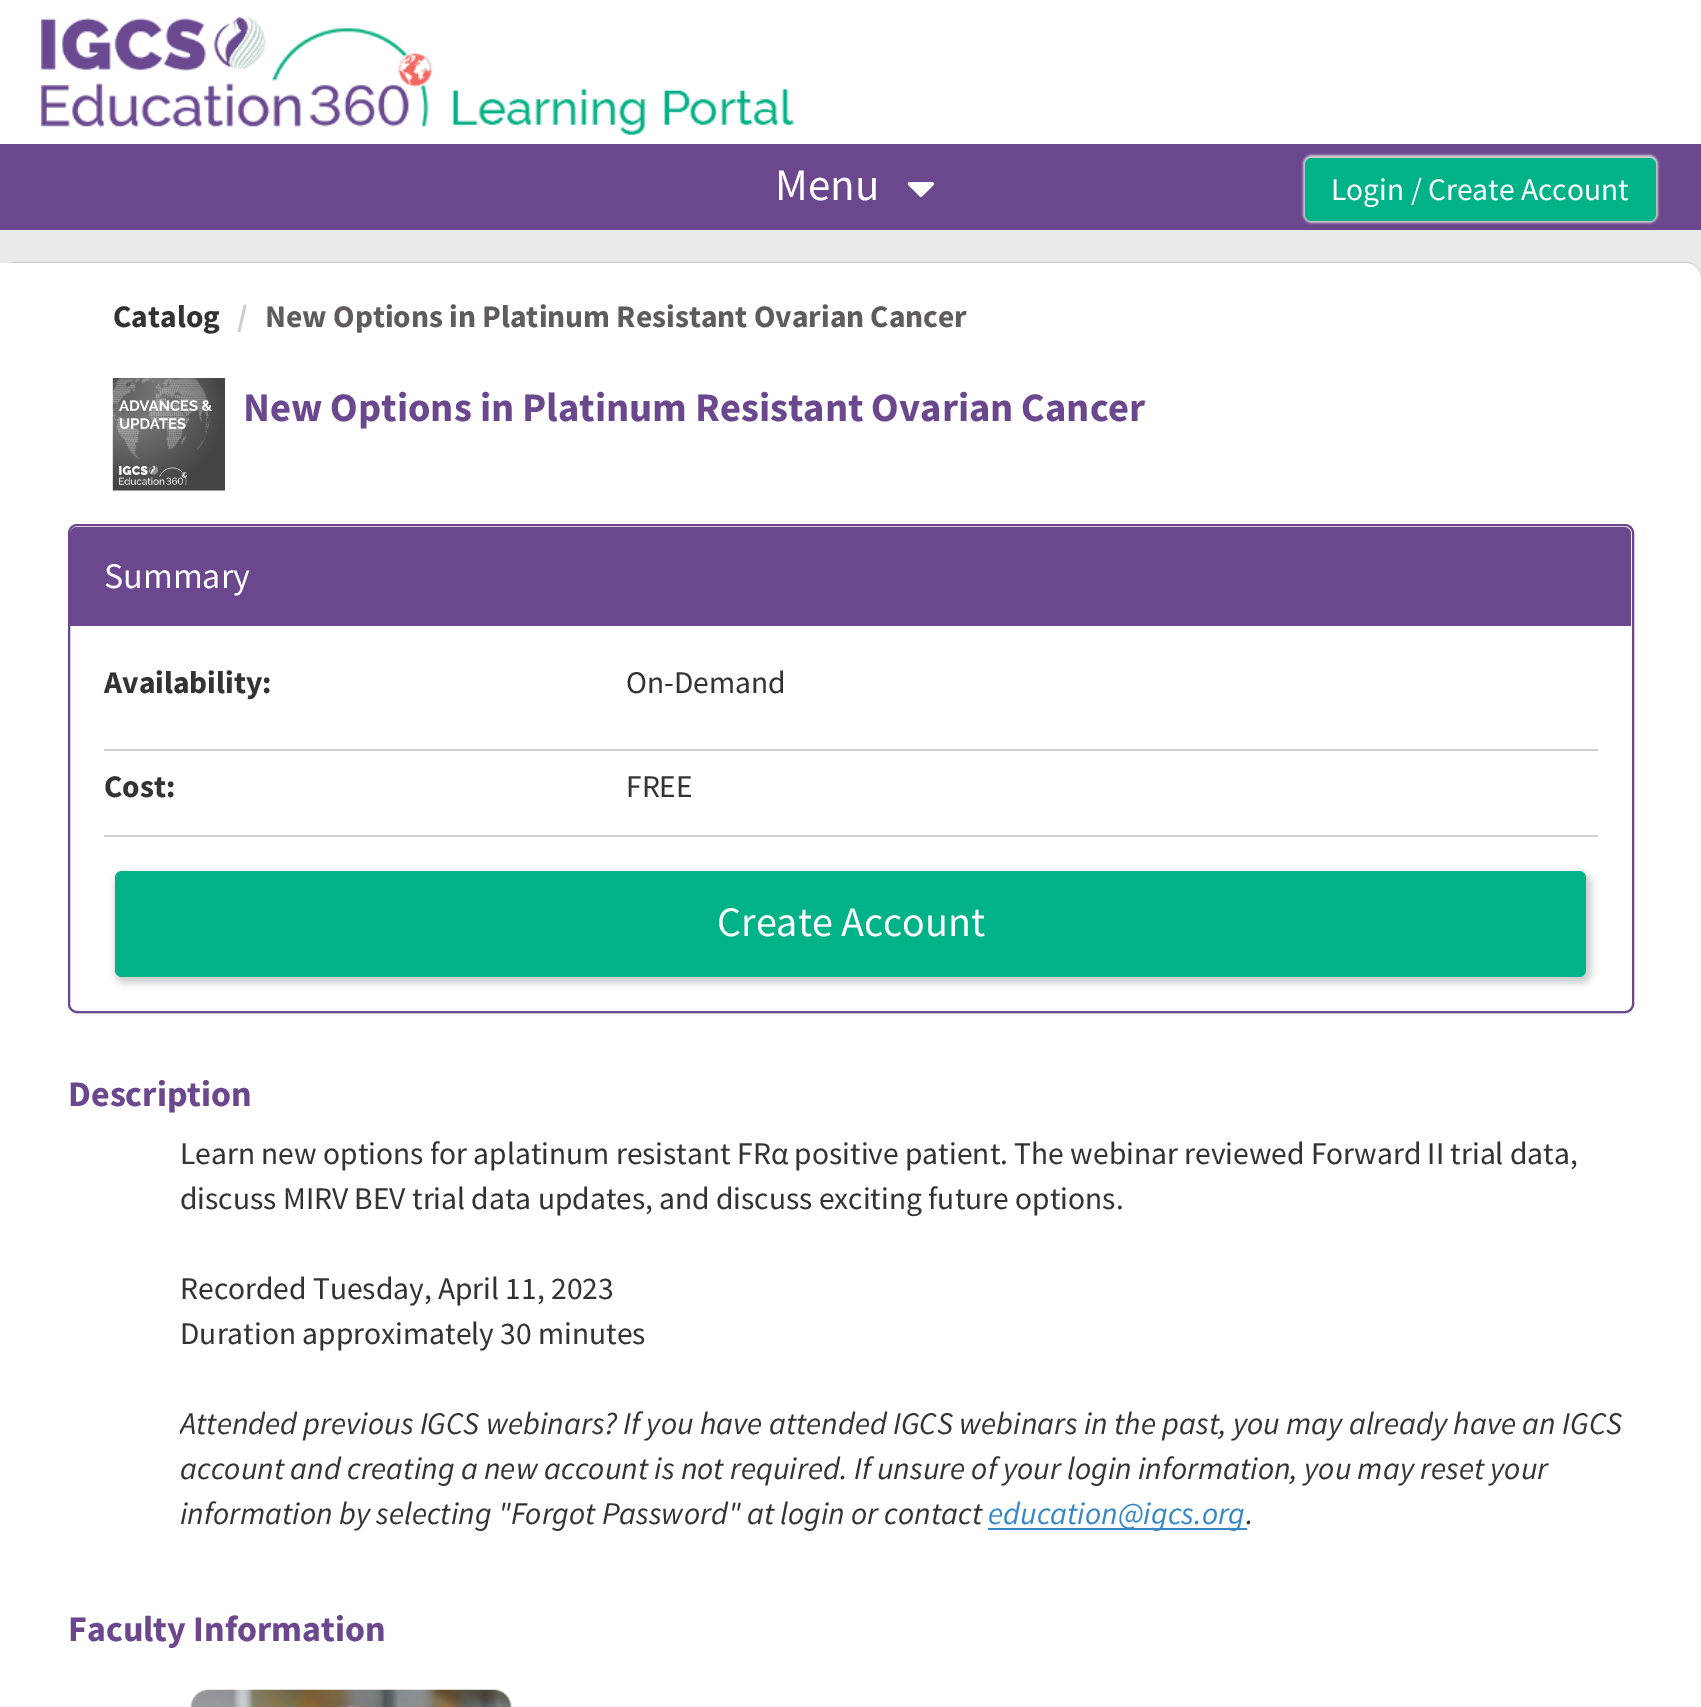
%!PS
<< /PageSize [1701 1707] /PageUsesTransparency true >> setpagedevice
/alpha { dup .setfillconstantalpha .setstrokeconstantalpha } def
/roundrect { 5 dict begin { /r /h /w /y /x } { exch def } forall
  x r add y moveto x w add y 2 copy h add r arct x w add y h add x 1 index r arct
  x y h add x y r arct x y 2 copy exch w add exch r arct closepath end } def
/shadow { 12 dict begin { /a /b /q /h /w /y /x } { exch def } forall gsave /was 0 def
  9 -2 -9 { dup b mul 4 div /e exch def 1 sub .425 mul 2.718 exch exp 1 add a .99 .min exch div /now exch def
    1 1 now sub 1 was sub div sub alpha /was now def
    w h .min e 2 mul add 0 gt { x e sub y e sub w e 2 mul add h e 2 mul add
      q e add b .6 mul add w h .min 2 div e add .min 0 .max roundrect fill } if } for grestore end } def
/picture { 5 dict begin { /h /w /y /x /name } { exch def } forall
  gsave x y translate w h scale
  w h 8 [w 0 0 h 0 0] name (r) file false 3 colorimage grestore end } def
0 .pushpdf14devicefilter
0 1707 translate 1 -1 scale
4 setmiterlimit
0.918 setgray
0 0 1701 1707 rectfill
1 setgray
0 0 1701 144 rectfill
(img1.rgb) 40 16 755 119 picture
0.42 0.278 0.557 setrgbcolor
0 144 1701 86 rectfill
/SourceSansPro-Regular [45 0 0 -45 0 0] selectfont
1 setgray
775 200 moveto (Menu) show
(img2.rgb) 907 182 28 15 picture
0.8 setgray
1303 155 355 68 9 1 1 shadow
0 0.698 0.533 setrgbcolor
1305 158 351 63 7 roundrect fill
/SourceSansPro-Regular [31.5 0 0 -31.5 0 0] selectfont
1 setgray
1331 200 moveto (Login / Create Account) show
0.196 setgray
0 263 1701 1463 16 1 0.5 shadow
1 setgray
newpath 0 263 moveto 1685 263 lineto 1694 263 1701 270 1701 279 curveto 1701 1707 lineto 1701 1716 1694 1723 1685 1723 curveto 0 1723 lineto closepath fill
/SourceSansPro-Bold [31.5 0 0 -31.5 0 0] selectfont
0.2 setgray
113 327 moveto (Catalog) show
0.8 setgray
237 327 moveto (/) show
0.373 0.357 0.373 setrgbcolor
265 327 moveto (New Options in Platinum Resistant Ovarian Cancer) show
(img3.rgb) 112 378 113 113 picture
/SourceSansPro-Bold [40.5 0 0 -40.5 0 0] selectfont
0.42 0.278 0.557 setrgbcolor
243 421 moveto (New Options in Platinum Resistant Ovarian Cancer) show
0 setgray
68 527 1566 488 9 1 0.05 shadow
1 setgray
69 525 1564 487 8 roundrect gsave fill grestore
0.42 0.278 0.557 setrgbcolor
2 setlinewidth
stroke
newpath 77 527 moveto 1624 527 lineto 1628 527 1631 530 1631 534 curveto 1631 626 lineto 70 626 lineto 70 534 lineto 70 530 73 527 77 527 curveto closepath fill
/SourceSansPro-Regular [36 0 0 -36 0 0] selectfont
1 setgray
104 588 moveto (Summary) show
/SourceSansPro-Bold [31.5 0 0 -31.5 0 0] selectfont
0.2 setgray
104 693 moveto (Availability:) show
/SourceSansPro-Regular [31.5 0 0 -31.5 0 0] selectfont
626 693 moveto (On-Demand) show
0.816 setgray
104 749 1494 2 rectfill
/SourceSansPro-Bold [31.5 0 0 -31.5 0 0] selectfont
0.2 setgray
104 797 moveto (Cost:) show
/SourceSansPro-Regular [31.5 0 0 -31.5 0 0] selectfont
626 797 moveto (FREE) show
0.816 setgray
104 835 1494 2 rectfill
0.8 setgray
115 873 1476 110 9 3.5 1 shadow
0 0.698 0.533 setrgbcolor
115 871 1471 106 7 roundrect fill
/SourceSansPro-Regular [42 0 0 -42 0 0] selectfont
1 setgray
717 936 moveto (Create Account) show
/SourceSansPro-Bold [36 0 0 -36 0 0] selectfont
0.42 0.278 0.557 setrgbcolor
68 1106 moveto (Description) show
/SourceSansPro-Regular [31.5 0 0 -31.5 0 0] selectfont
0.2 setgray
180 1164 moveto (Learn new options for aplatinum resistant FRα positive patient. The webinar reviewed Forward II trial data,) show
180 1209 moveto (discuss MIRV BEV trial data updates, and discuss exciting future options.) show
180 1299 moveto (Recorded Tuesday, April 11, 2023) show
180 1344 moveto (Duration approximately 30 minutes) show
gsave
180 1132 1454 405 rectclip
/SourceSansPro-Italic [31.5 0 0 -31.5 0 0] selectfont
180 1434 moveto (Attended previous IGCS webinars? If you have attended IGCS webinars in the past, you may already have an IGCS) show
grestore
/SourceSansPro-Italic [31.5 0 0 -31.5 0 0] selectfont
180 1479 moveto (account and creating a new account is not required. If unsure of your login information, you may reset your) show
180 1524 moveto (information by selecting "Forgot Password" at login or contact) show
0.212 0.529 0.776 setrgbcolor
988 1528 259 2 rectfill
988 1524 moveto (education@igcs.org) show
0.2 setgray
1246 1524 moveto (.) show
/SourceSansPro-Bold [36 0 0 -36 0 0] selectfont
0.42 0.278 0.557 setrgbcolor
68 1641 moveto (Faculty Information) show
(img4.rgb) 190 1689 322 18 picture
.poppdf14devicefilter showpage
